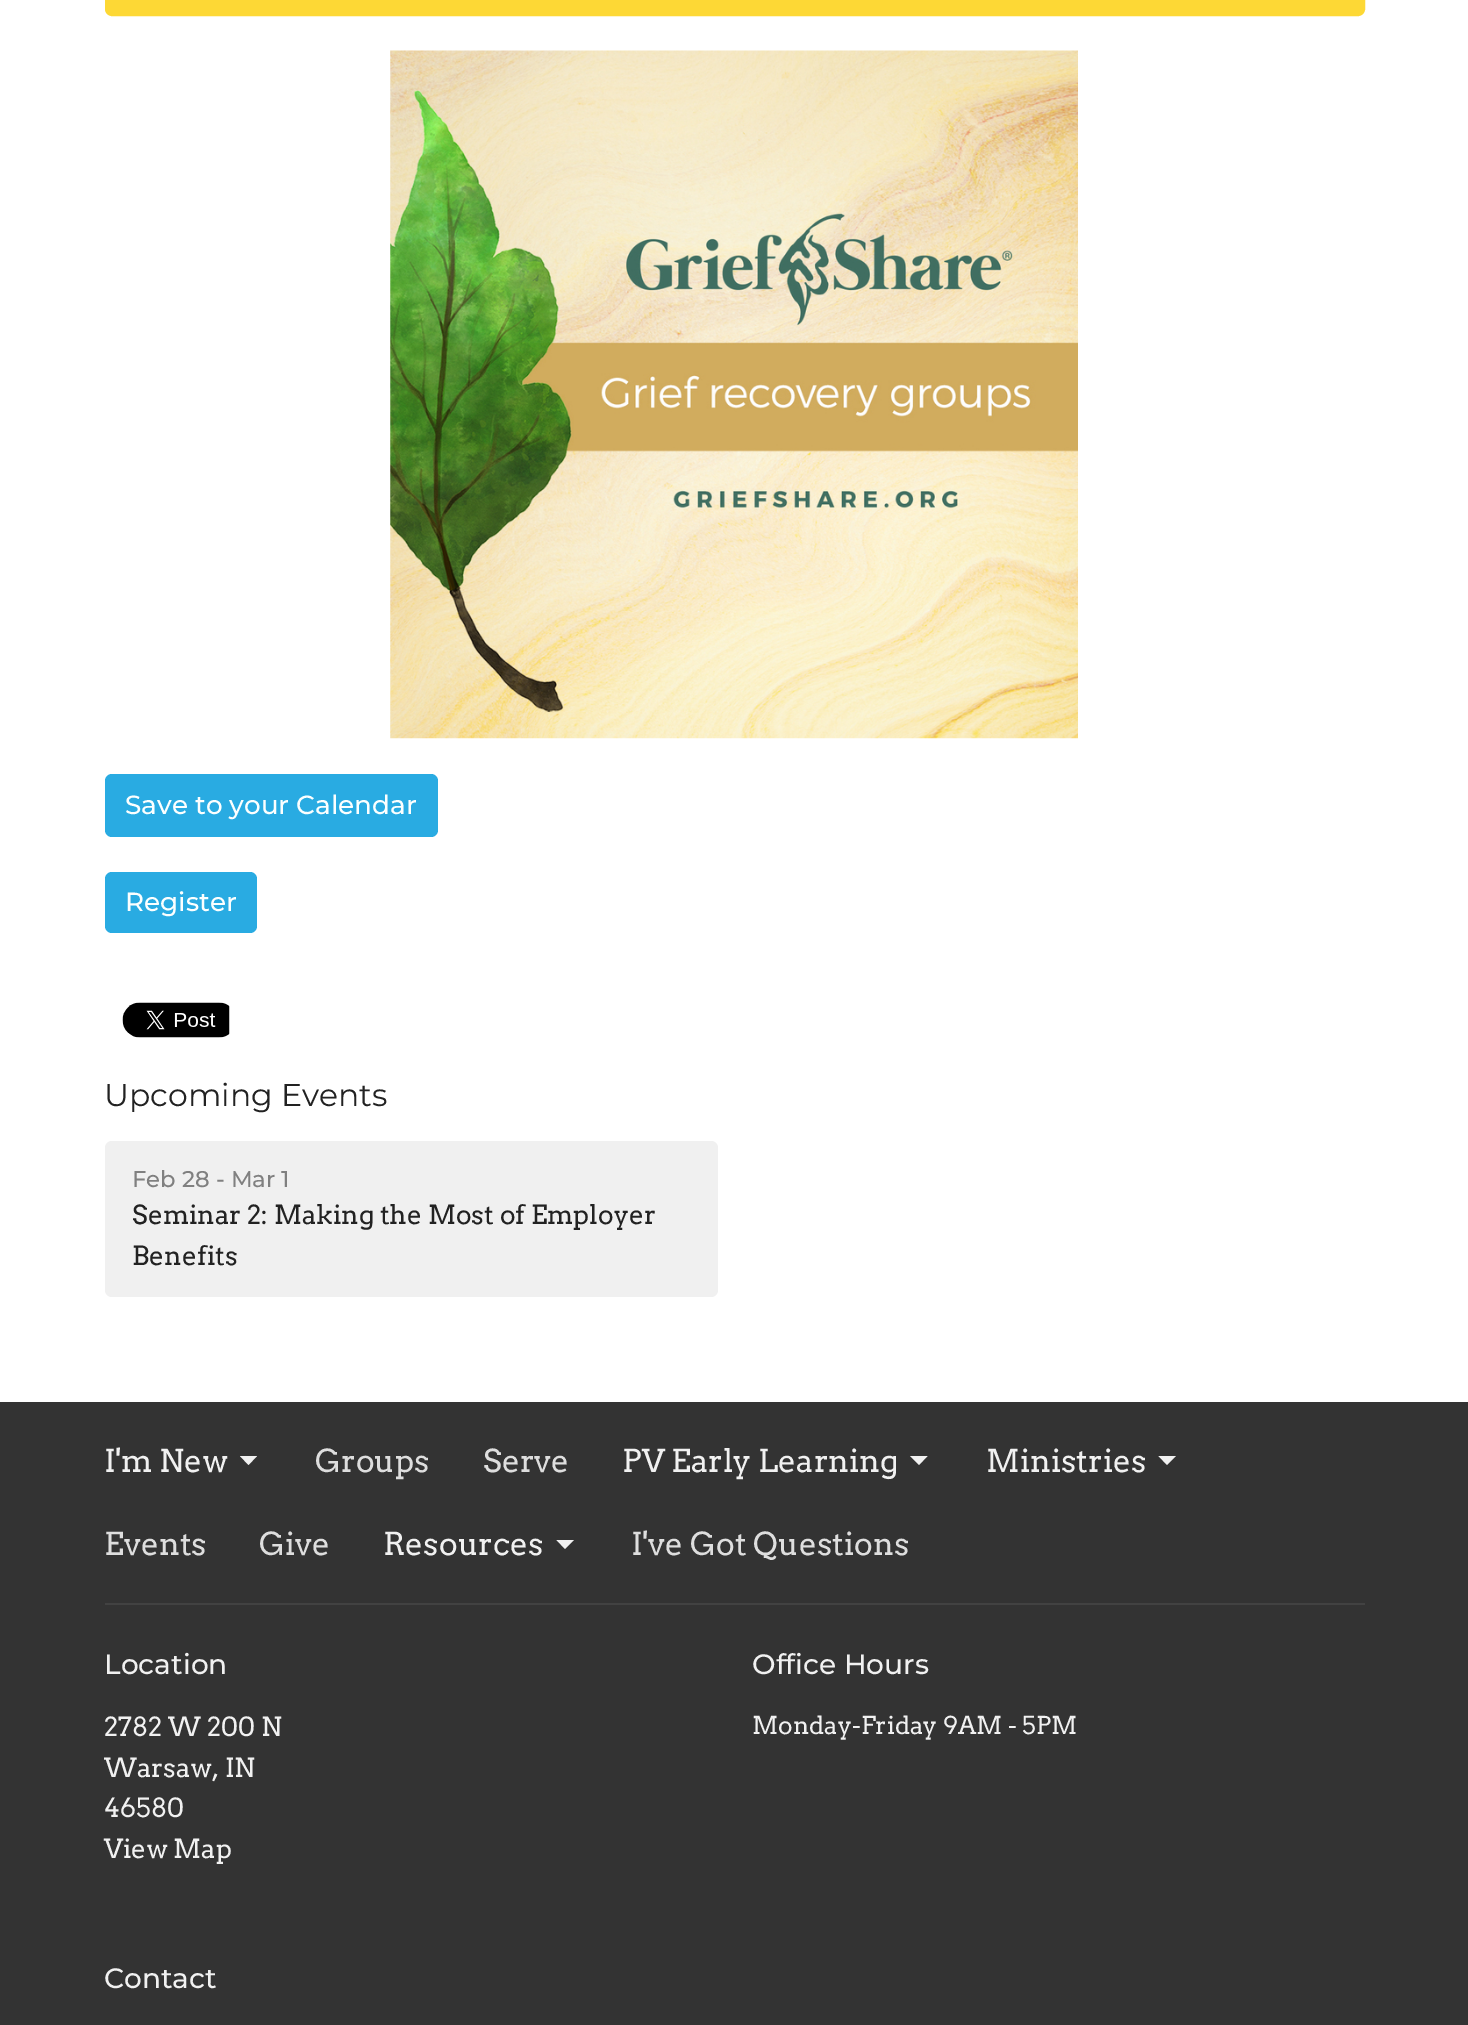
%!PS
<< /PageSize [1468 2025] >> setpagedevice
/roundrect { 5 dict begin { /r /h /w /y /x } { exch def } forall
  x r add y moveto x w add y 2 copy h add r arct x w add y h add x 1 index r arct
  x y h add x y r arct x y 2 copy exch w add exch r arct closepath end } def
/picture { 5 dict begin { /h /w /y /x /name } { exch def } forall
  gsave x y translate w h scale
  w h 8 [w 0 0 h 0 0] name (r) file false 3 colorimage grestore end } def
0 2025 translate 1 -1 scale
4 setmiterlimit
1 setgray
0 0 1468 2025 rectfill
0.992 0.847 0.208 setrgbcolor
106 -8 1258 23 6 roundrect gsave fill grestore
2 setlinewidth
stroke
(img1.rgb) 390 50 688 689 picture
0.161 0.671 0.886 setrgbcolor
105 774 333 63 7 roundrect fill
/Montserrat-Medium [26.25 0 0 -26.25 0 0] selectfont
0.988 1 1 setrgbcolor
125 814 moveto (Save to your Calendar) show
0.161 0.671 0.886 setrgbcolor
105 872 152 61 7 roundrect fill
0.988 1 1 setrgbcolor
125 911 moveto (Register) show
(img2.rgb) 122 1002 108 36 picture
/Montserrat-Regular [31.5 0 0 -31.5 0 0] selectfont
0.133 setgray
104 1106 moveto (Upcoming Events) show
0.941 setgray
105 1141 613 156 7 roundrect fill
/Montserrat-Medium [22.75 0 0 -22.75 0 0] selectfont
0.502 setgray
132 1187 moveto (Feb 28 - Mar 1) show
/Arvo-Regular [26.25 0 0 -26.25 0 0] selectfont
0.133 setgray
132 1224 moveto (Seminar 2: Making the Most of Employer) show
132 1265 moveto (Benefits) show
0.2 setgray
0 1402 1468 623 rectfill
/Arvo-Regular [31.5 0 0 -31.5 0 0] selectfont
0.945 setgray
104 1472 moveto (I'm New) show
newpath 240 1456 moveto 248.5 1465 lineto 257 1456 lineto closepath fill
0.871 setgray
315 1472 moveto (Groups) show
483 1472 moveto (Serve) show
0.945 setgray
622 1472 moveto (PV Early Learning) show
newpath 910 1456 moveto 919 1465 lineto 927.5 1456 lineto closepath fill
986 1472 moveto (Ministries) show
newpath 1158.5 1456 moveto 1167 1465 lineto 1176 1456 lineto closepath fill
0.871 setgray
104 1555 moveto (Events) show
259 1555 moveto (Give) show
0.945 setgray
383 1555 moveto (Resources) show
newpath 556.5 1540 moveto 565 1549 lineto 574 1540 lineto closepath fill
0.871 setgray
631 1555 moveto (I've Got Questions) show
0.259 setgray
105 1603 1260 2 rectfill
/Montserrat-Medium [28 0 0 -28 0 0] selectfont
0.945 setgray
104 1674 moveto (Location) show
/Arvo-Regular [26.25 0 0 -26.25 0 0] selectfont
104 1736 moveto (2782 W 200 N) show
104 1777 moveto (Warsaw, IN) show
104 1817 moveto (46580) show
104 1858 moveto (View Map) show
/Montserrat-Medium [28 0 0 -28 0 0] selectfont
752 1674 moveto (Office Hours) show
/Arvo-Regular [24.5 0 0 -24.5 0 0] selectfont
752 1734 moveto (Monday-Friday 9AM - 5PM) show
/Montserrat-Medium [28 0 0 -28 0 0] selectfont
104 1988 moveto (Contact) show
showpage
